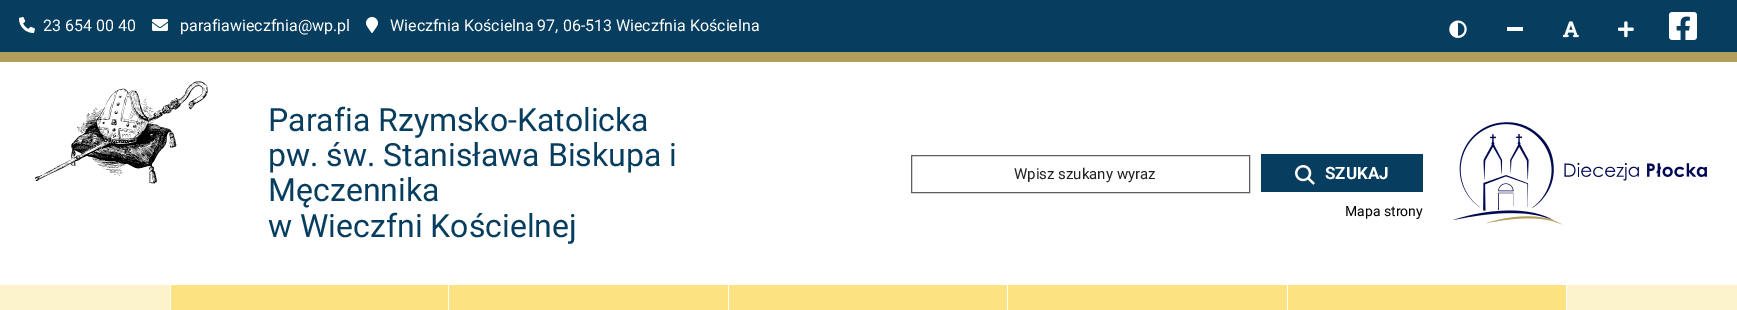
%!PS
<< /PageSize [1737 310] >> setpagedevice
/picture { 5 dict begin { /h /w /y /x /name } { exch def } forall
  gsave x y translate w h scale
  w h 8 [w 0 0 h 0 0] name (r) file false 3 colorimage grestore end } def
0 310 translate 1 -1 scale
4 setmiterlimit
0.027 0.239 0.369 setrgbcolor
0 0 1737 310 rectfill
(img1.rgb) 19 17 16 16 picture
/Roboto-Regular [16 0 0 -16 0 0] selectfont
1 setgray
43 31 moveto (23 654 00 40) show
(img2.rgb) 152 19 16 12 picture
180 31 moveto (parafiawieczfnia@wp.pl) show
(img3.rgb) 366 17 12 16 picture
390 31 moveto (Wieczfnia Kościelna 97, 06-513 Wieczfnia Kościelna) show
(img4.rgb) 1449 20 18 18 picture
1507 27 16 4 rectfill
(img5.rgb) 1563 21 16 17 picture
(img6.rgb) 1618 21 16 17 picture
(img7.rgb) 1669 12 28 28 picture
0 62 1737 223 rectfill
0.694 0.62 0.353 setrgbcolor
0 52 1737 10 rectfill
(img8.rgb) 35 81 173 103 picture
/Roboto-Regular [32 0 0 -32 0 0] selectfont
0.027 0.239 0.369 setrgbcolor
268 131 moveto (Parafia Rzymsko-Katolicka) show
268 166 moveto (pw. św. Stanisława Biskupa i) show
268 201 moveto (Męczennika) show
268 237 moveto (w Wieczfni Kościelnej) show
0.373 0.369 0.361 setrgbcolor
911.5 155.5 338 37 rectstroke
/Roboto-Regular [15 0 0 -15 0 0] selectfont
0.129 setgray
1014 179 moveto (Wpisz szukany wyraz) show
0.027 0.239 0.369 setrgbcolor
1261 154 162 38 rectfill
(img9.rgb) 1295 165 20 20 picture
/Roboto-Bold [17 0 0 -17 0 0] selectfont
1 setgray
1325 179 moveto (SZUKAJ) show
/Roboto-Regular [14 0 0 -14 0 0] selectfont
0 setgray
1345 216 moveto (Mapa strony) show
(img10.rgb) 1453 122 254 103 picture
0.988 0.949 0.8 setrgbcolor
0 285 1737 25 rectfill
1 setgray
170 285 1 25 rectfill
0.988 0.886 0.506 setrgbcolor
171 285 277 25 rectfill
1 setgray
448 285 1 25 rectfill
0.988 0.886 0.506 setrgbcolor
449 285 279 25 rectfill
1 setgray
728 285 1 25 rectfill
0.988 0.886 0.506 setrgbcolor
729 285 278 25 rectfill
1 setgray
1007 285 1 25 rectfill
0.988 0.886 0.506 setrgbcolor
1008 285 279 25 rectfill
1 setgray
1287 285 1 25 rectfill
1566 285 1 25 rectfill
0.988 0.886 0.506 setrgbcolor
1288 285 278 25 rectfill
showpage
